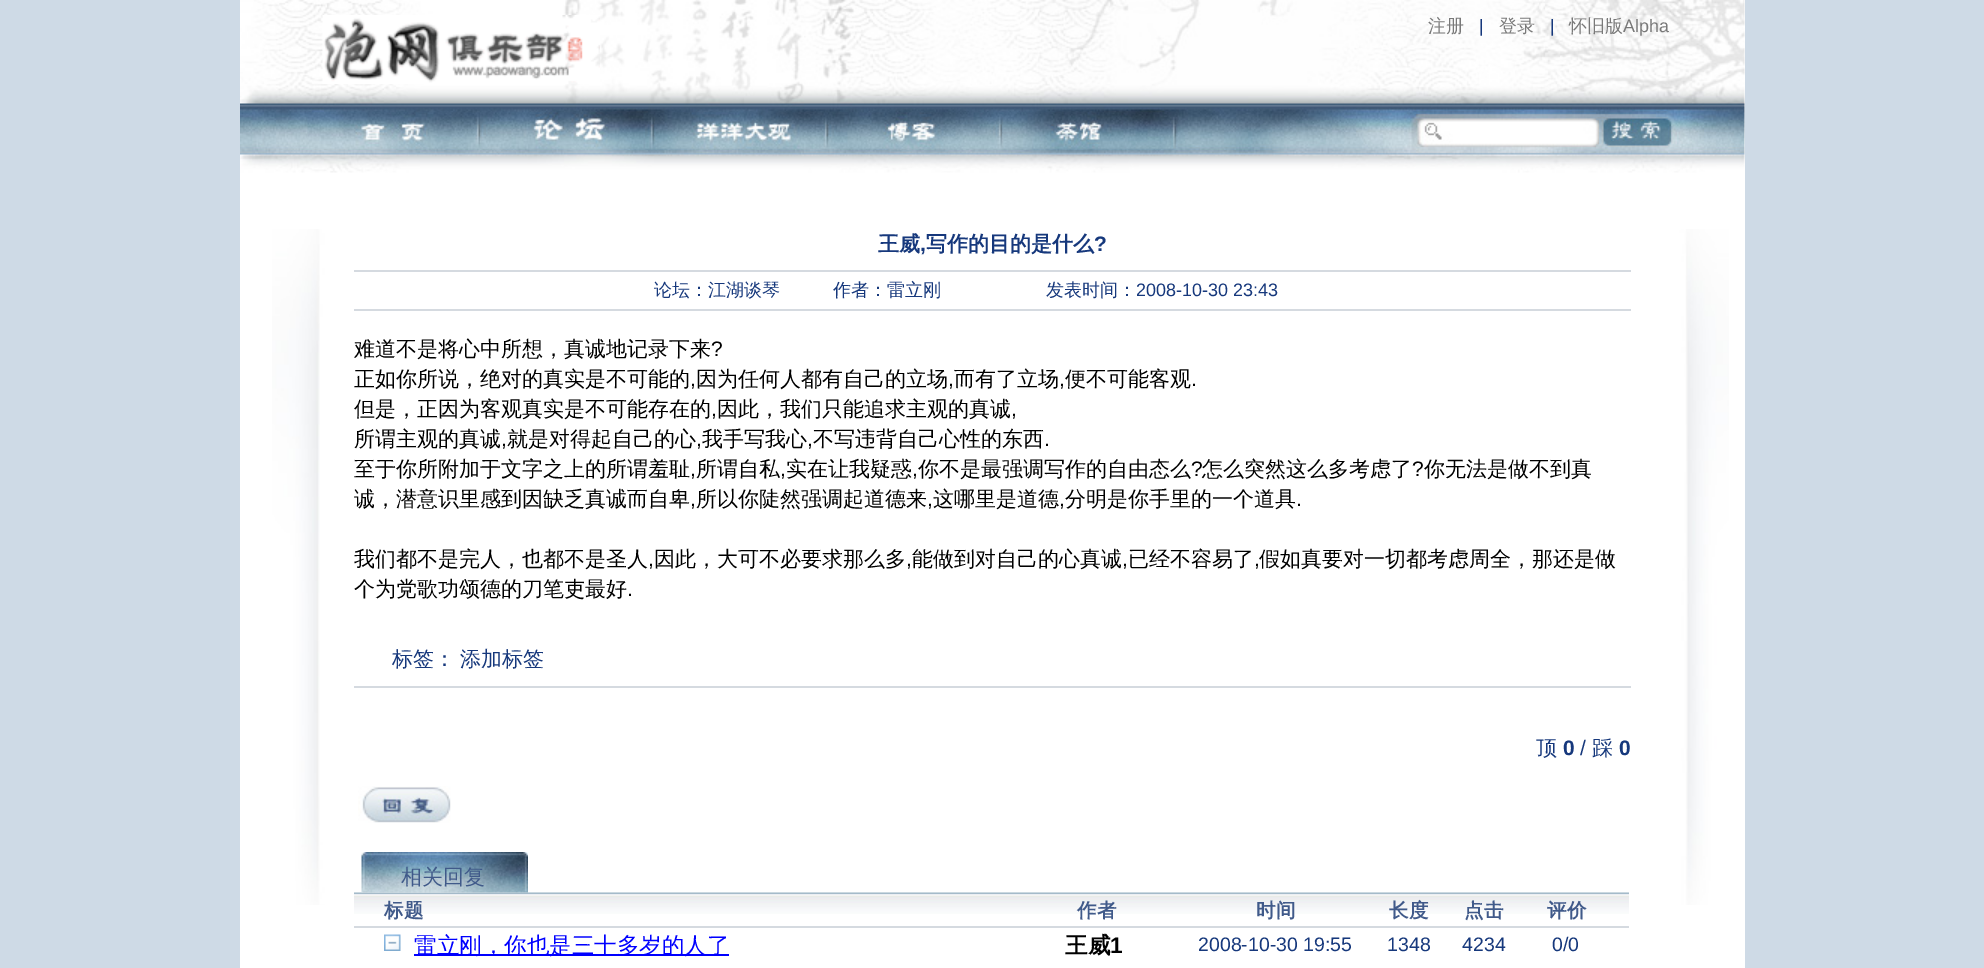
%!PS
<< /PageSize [1984 968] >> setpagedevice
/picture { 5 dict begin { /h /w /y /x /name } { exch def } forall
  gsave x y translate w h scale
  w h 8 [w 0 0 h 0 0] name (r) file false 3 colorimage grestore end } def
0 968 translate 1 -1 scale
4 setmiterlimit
0.808 0.855 0.902 setrgbcolor
0 0 1984 968 rectfill
1 setgray
240 0 1505 968 rectfill
(img1.rgb) 240 0 1505 173 picture
(img2.rgb) 322 15 278 69 picture
/WenQuanYiZenHei-Medium [18 0 0 -18 0 0] selectfont
0.475 setgray
1428 32 moveto (注册) show
/LiberationSans-Regular [18 0 0 -18 0 0] selectfont
0.086 0.22 0.486 setrgbcolor
1479 32 moveto (|) show
/WenQuanYiZenHei-Medium [18 0 0 -18 0 0] selectfont
0.475 setgray
1499 32 moveto (登录) show
/LiberationSans-Regular [18 0 0 -18 0 0] selectfont
0.086 0.22 0.486 setrgbcolor
1550 32 moveto (|) show
/WenQuanYiZenHei-Medium [18 0 0 -18 0 0] selectfont
0.475 setgray
1569 32 moveto (怀旧版) show
/LiberationSans-Regular [18 0 0 -18 0 0] selectfont
1623 32 moveto (Alpha) show
(img3.rgb) 307 112 175 37 picture
(img4.rgb) 481 112 175 37 picture
(img5.rgb) 655 112 175 37 picture
(img6.rgb) 829 112 175 37 picture
(img7.rgb) 1003 112 175 37 picture
(img8.rgb) 1611 120 50 21 picture
(img9.rgb) 272 229 1457 676 picture
0.835 0.855 0.878 setrgbcolor
354 270 1277 2 rectfill
/WenQuanYiZenHei-Bold [21 0 0 -21 0 0] selectfont
0.086 0.22 0.486 setrgbcolor
878 251 moveto (王威) show
/LiberationSans-Bold [21 0 0 -21 0 0] selectfont
920 251 moveto (,) show
/WenQuanYiZenHei-Bold [21 0 0 -21 0 0] selectfont
926 251 moveto (写作的目的是什么) show
/LiberationSans-Bold [21 0 0 -21 0 0] selectfont
1094 251 moveto (?) show
0.835 0.855 0.878 setrgbcolor
354 309 1277 2 rectfill
/WenQuanYiZenHei-Medium [18 0 0 -18 0 0] selectfont
0.086 0.22 0.486 setrgbcolor
654 296 moveto (论坛：江湖谈琴) show
833 296 moveto (作者：雷立刚) show
1046 296 moveto (发表时间：) show
/LiberationSans-Regular [18 0 0 -18 0 0] selectfont
1136 296 moveto (2008-10-30 23:43) show
/WenQuanYiZenHei-Medium [21 0 0 -21 0 0] selectfont
0 setgray
354 356 moveto (难道不是将心中所想，真诚地记录下来) show
/LiberationSans-Regular [21 0 0 -21 0 0] selectfont
711 356 moveto (?) show
/WenQuanYiZenHei-Medium [21 0 0 -21 0 0] selectfont
354 386 moveto (正如你所说，绝对的真实是不可能的) show
/LiberationSans-Regular [21 0 0 -21 0 0] selectfont
690 386 moveto (,) show
/WenQuanYiZenHei-Medium [21 0 0 -21 0 0] selectfont
696 386 moveto (因为任何人都有自己的立场) show
/LiberationSans-Regular [21 0 0 -21 0 0] selectfont
948 386 moveto (,) show
/WenQuanYiZenHei-Medium [21 0 0 -21 0 0] selectfont
954 386 moveto (而有了立场) show
/LiberationSans-Regular [21 0 0 -21 0 0] selectfont
1059 386 moveto (,) show
/WenQuanYiZenHei-Medium [21 0 0 -21 0 0] selectfont
1065 386 moveto (便不可能客观) show
/LiberationSans-Regular [21 0 0 -21 0 0] selectfont
1191 386 moveto (.) show
/WenQuanYiZenHei-Medium [21 0 0 -21 0 0] selectfont
354 416 moveto (但是，正因为客观真实是不可能存在的) show
/LiberationSans-Regular [21 0 0 -21 0 0] selectfont
711 416 moveto (,) show
/WenQuanYiZenHei-Medium [21 0 0 -21 0 0] selectfont
717 416 moveto (因此，我们只能追求主观的真诚) show
/LiberationSans-Regular [21 0 0 -21 0 0] selectfont
1011 416 moveto (,) show
/WenQuanYiZenHei-Medium [21 0 0 -21 0 0] selectfont
354 446 moveto (所谓主观的真诚) show
/LiberationSans-Regular [21 0 0 -21 0 0] selectfont
501 446 moveto (,) show
/WenQuanYiZenHei-Medium [21 0 0 -21 0 0] selectfont
507 446 moveto (就是对得起自己的心) show
/LiberationSans-Regular [21 0 0 -21 0 0] selectfont
696 446 moveto (,) show
/WenQuanYiZenHei-Medium [21 0 0 -21 0 0] selectfont
702 446 moveto (我手写我心) show
/LiberationSans-Regular [21 0 0 -21 0 0] selectfont
807 446 moveto (,) show
/WenQuanYiZenHei-Medium [21 0 0 -21 0 0] selectfont
813 446 moveto (不写违背自己心性的东西) show
/LiberationSans-Regular [21 0 0 -21 0 0] selectfont
1044 446 moveto (.) show
/WenQuanYiZenHei-Medium [21 0 0 -21 0 0] selectfont
354 476 moveto (至于你所附加于文字之上的所谓羞耻) show
/LiberationSans-Regular [21 0 0 -21 0 0] selectfont
690 476 moveto (,) show
/WenQuanYiZenHei-Medium [21 0 0 -21 0 0] selectfont
696 476 moveto (所谓自私) show
/LiberationSans-Regular [21 0 0 -21 0 0] selectfont
780 476 moveto (,) show
/WenQuanYiZenHei-Medium [21 0 0 -21 0 0] selectfont
786 476 moveto (实在让我疑惑) show
/LiberationSans-Regular [21 0 0 -21 0 0] selectfont
912 476 moveto (,) show
/WenQuanYiZenHei-Medium [21 0 0 -21 0 0] selectfont
918 476 moveto (你不是最强调写作的自由态么) show
/LiberationSans-Regular [21 0 0 -21 0 0] selectfont
1191 476 moveto (?) show
/WenQuanYiZenHei-Medium [21 0 0 -21 0 0] selectfont
1202 476 moveto (怎么突然这么多考虑了) show
/LiberationSans-Regular [21 0 0 -21 0 0] selectfont
1412 476 moveto (?) show
/WenQuanYiZenHei-Medium [21 0 0 -21 0 0] selectfont
1424 476 moveto (你无法是做不到真) show
354 506 moveto (诚，潜意识里感到因缺乏真诚而自卑) show
/LiberationSans-Regular [21 0 0 -21 0 0] selectfont
690 506 moveto (,) show
/WenQuanYiZenHei-Medium [21 0 0 -21 0 0] selectfont
696 506 moveto (所以你陡然强调起道德来) show
/LiberationSans-Regular [21 0 0 -21 0 0] selectfont
927 506 moveto (,) show
/WenQuanYiZenHei-Medium [21 0 0 -21 0 0] selectfont
933 506 moveto (这哪里是道德) show
/LiberationSans-Regular [21 0 0 -21 0 0] selectfont
1059 506 moveto (,) show
/WenQuanYiZenHei-Medium [21 0 0 -21 0 0] selectfont
1065 506 moveto (分明是你手里的一个道具) show
/LiberationSans-Regular [21 0 0 -21 0 0] selectfont
1296 506 moveto (.) show
/WenQuanYiZenHei-Medium [21 0 0 -21 0 0] selectfont
354 566 moveto (我们都不是完人，也都不是圣人) show
/LiberationSans-Regular [21 0 0 -21 0 0] selectfont
648 566 moveto (,) show
/WenQuanYiZenHei-Medium [21 0 0 -21 0 0] selectfont
654 566 moveto (因此，大可不必要求那么多) show
/LiberationSans-Regular [21 0 0 -21 0 0] selectfont
906 566 moveto (,) show
/WenQuanYiZenHei-Medium [21 0 0 -21 0 0] selectfont
912 566 moveto (能做到对自己的心真诚) show
/LiberationSans-Regular [21 0 0 -21 0 0] selectfont
1122 566 moveto (,) show
/WenQuanYiZenHei-Medium [21 0 0 -21 0 0] selectfont
1128 566 moveto (已经不容易了) show
/LiberationSans-Regular [21 0 0 -21 0 0] selectfont
1254 566 moveto (,) show
/WenQuanYiZenHei-Medium [21 0 0 -21 0 0] selectfont
1259 566 moveto (假如真要对一切都考虑周全，那还是做) show
354 596 moveto (个为党歌功颂德的刀笔吏最好) show
/LiberationSans-Regular [21 0 0 -21 0 0] selectfont
627 596 moveto (.) show
0.835 0.855 0.878 setrgbcolor
354 686 1277 2 rectfill
/WenQuanYiZenHei-Medium [21 0 0 -21 0 0] selectfont
0.086 0.22 0.486 setrgbcolor
392 666 moveto (标签：) show
460 666 moveto (添加标签) show
1536 755 moveto (顶) show
/LiberationSans-Bold [21 0 0 -21 0 0] selectfont
1563 755 moveto (0) show
/LiberationSans-Regular [21 0 0 -21 0 0] selectfont
1580 755 moveto (/) show
/WenQuanYiZenHei-Medium [21 0 0 -21 0 0] selectfont
1592 755 moveto (踩) show
/LiberationSans-Bold [21 0 0 -21 0 0] selectfont
1619 755 moveto (0) show
(img10.rgb) 358 786 93 37 picture
(img12.rgb) 354 892 1275 22 picture
(img11.rgb) 361 852 167 41 picture
/WenQuanYiZenHei-Medium [21 0 0 -21 0 0] selectfont
0.251 0.353 0.541 setrgbcolor
401 884 moveto (相关回复) show
0.835 0.855 0.878 setrgbcolor
354 926 1275 2 rectfill
/WenQuanYiZenHei-Bold [19.5 0 0 -19.5 0 0] selectfont
0.251 0.353 0.541 setrgbcolor
384 917 moveto (标题) show
1077 917 moveto (作者) show
1256 917 moveto (时间) show
1389 917 moveto (长度) show
1464 917 moveto (点击) show
1547 917 moveto (评价) show
(img13.rgb) 384 934 17 17 picture
0 0 1 setrgbcolor
414 954 315 2 rectfill
/WenQuanYiZenHei-Medium [22.5 0 0 -22.5 0 0] selectfont
414 953 moveto (雷立刚，你也是三十多岁的人了) show
/WenQuanYiZenHei-Bold [22.5 0 0 -22.5 0 0] selectfont
0 setgray
1065 953 moveto (王威) show
/LiberationSans-Bold [22.5 0 0 -22.5 0 0] selectfont
1110 953 moveto (1) show
/LiberationSans-Regular [19.5 0 0 -19.5 0 0] selectfont
0.086 0.22 0.486 setrgbcolor
1198 951 moveto (2008-10-30 19:55) show
1387 951 moveto (1348) show
1462 951 moveto (4234) show
1552 951 moveto (0/0) show
showpage
